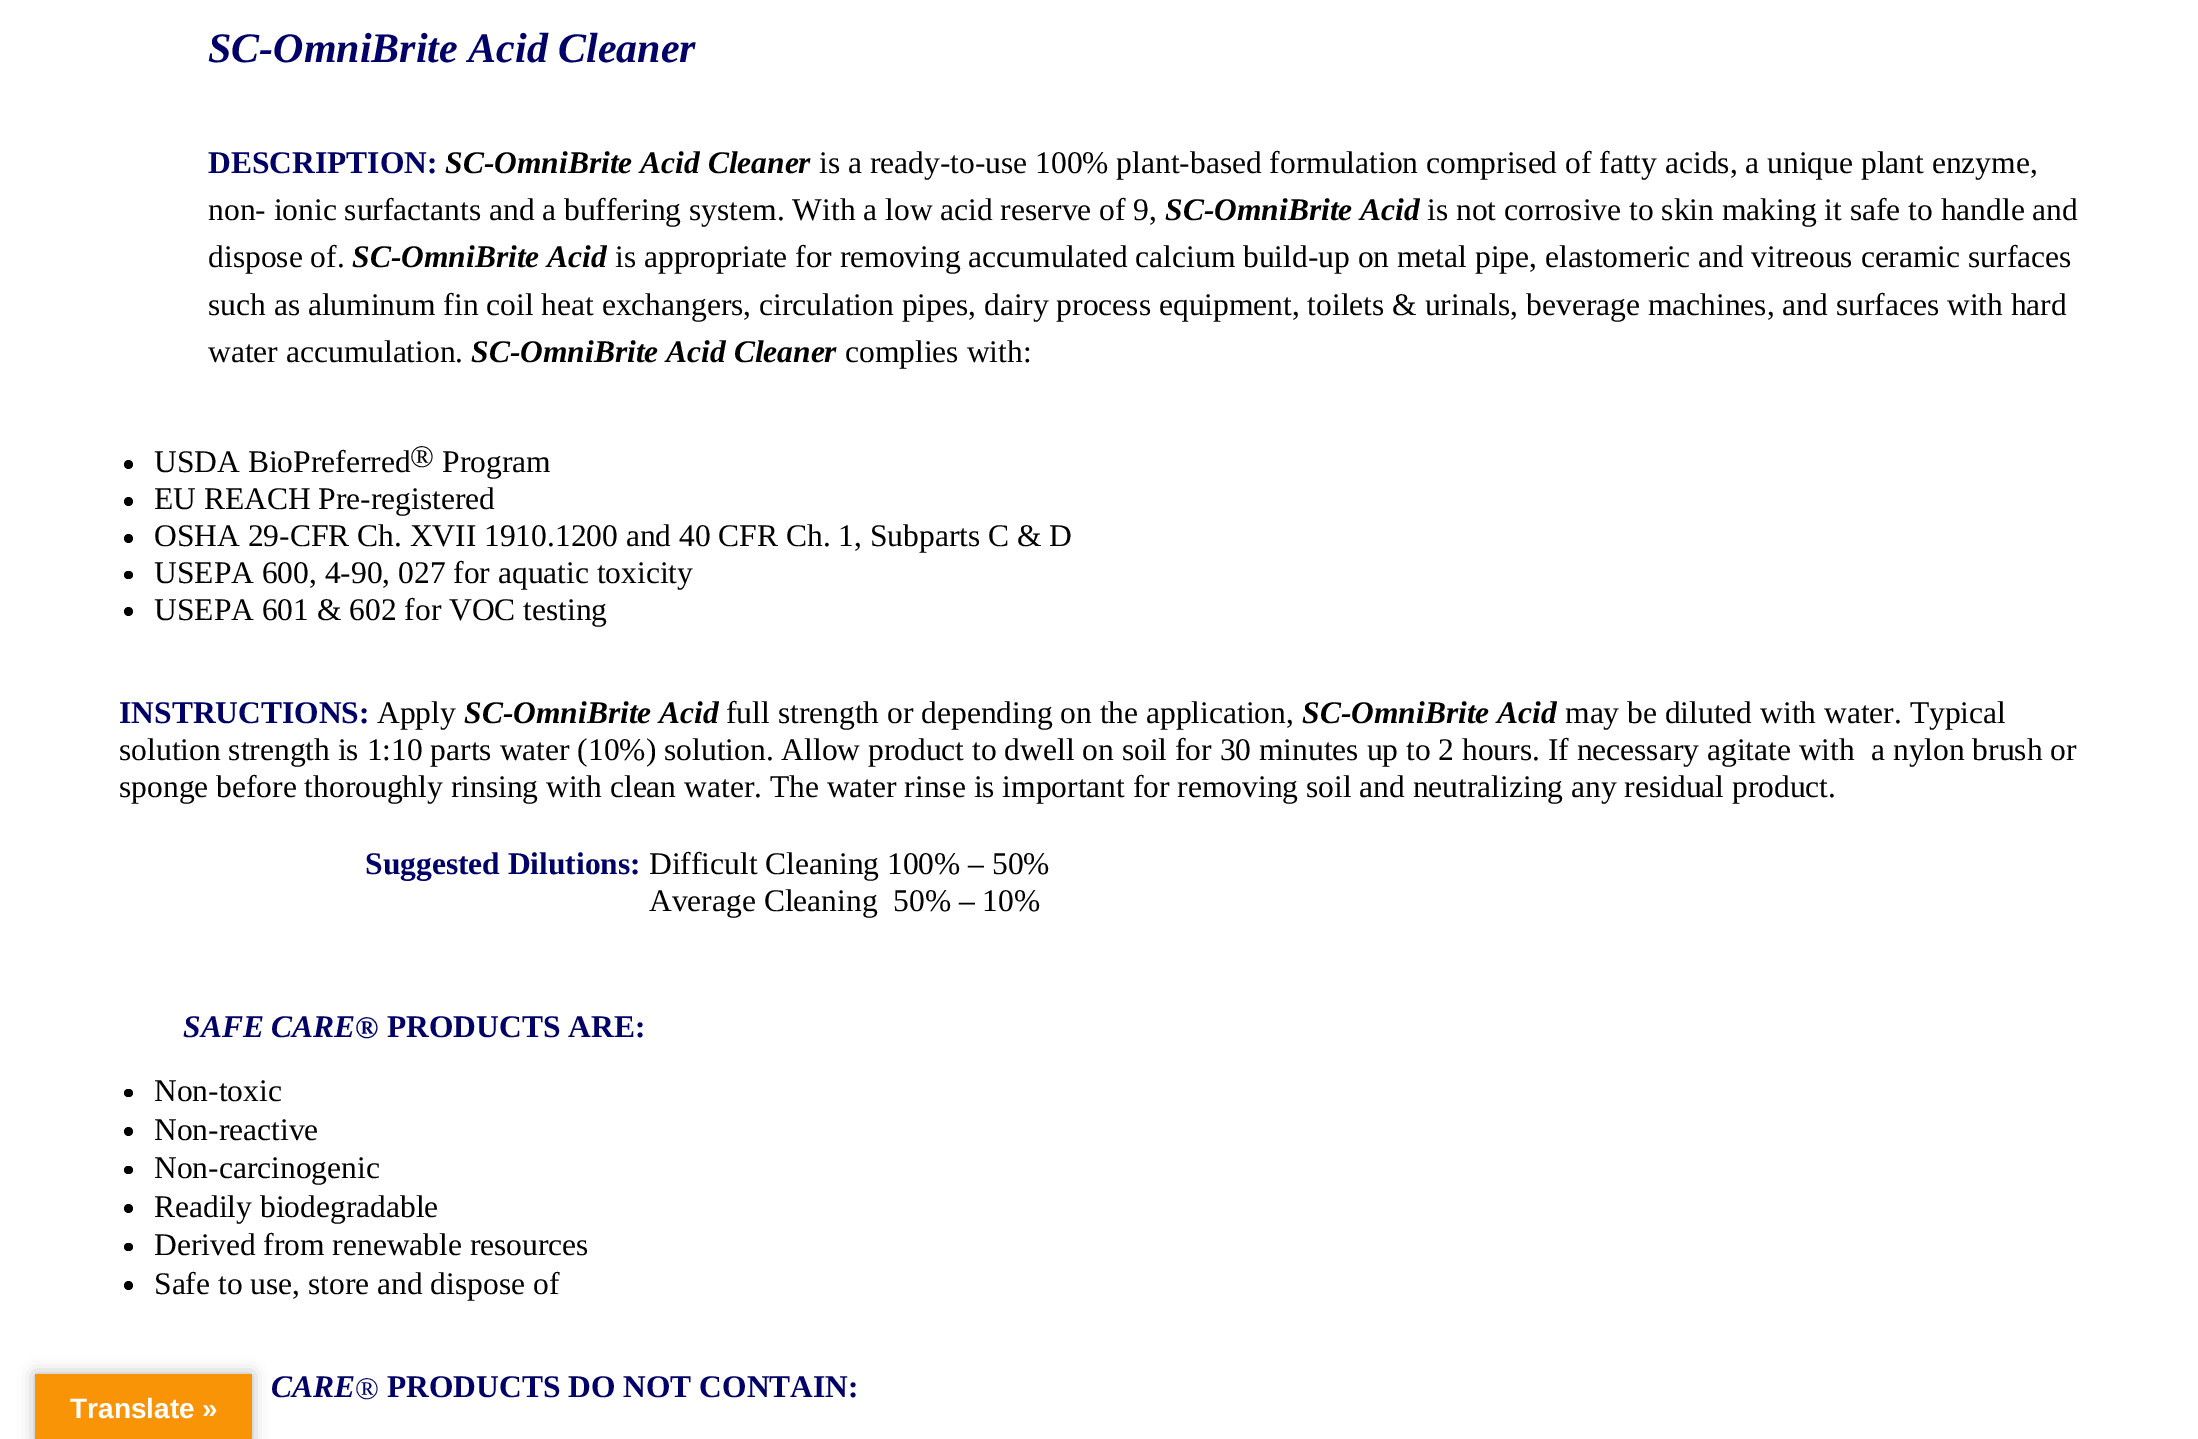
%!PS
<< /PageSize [2198 1439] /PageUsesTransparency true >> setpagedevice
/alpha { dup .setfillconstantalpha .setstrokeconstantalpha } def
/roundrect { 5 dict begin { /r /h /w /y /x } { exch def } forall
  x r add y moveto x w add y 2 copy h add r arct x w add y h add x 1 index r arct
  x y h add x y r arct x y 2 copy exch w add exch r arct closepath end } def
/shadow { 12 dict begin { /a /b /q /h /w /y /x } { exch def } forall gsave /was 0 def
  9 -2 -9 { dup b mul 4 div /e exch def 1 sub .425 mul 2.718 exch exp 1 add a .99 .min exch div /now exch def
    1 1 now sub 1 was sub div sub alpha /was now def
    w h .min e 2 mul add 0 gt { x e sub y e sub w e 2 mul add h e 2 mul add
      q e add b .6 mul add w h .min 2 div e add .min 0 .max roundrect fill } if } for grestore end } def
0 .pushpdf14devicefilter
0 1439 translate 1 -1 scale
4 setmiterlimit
1 setgray
0 0 2198 1439 rectfill
/LiberationSerif-BoldItalic [42 0 0 -42 0 0] selectfont
0 0 0.4 setrgbcolor
208 62 moveto (SC-OmniBrite Acid Cleaner) show
/LiberationSerif-Bold [31.5 0 0 -31.5 0 0] selectfont
208 173 moveto (DESCRIPTION:) show
/LiberationSerif-BoldItalic [31.5 0 0 -31.5 0 0] selectfont
0 setgray
445 173 moveto (SC-OmniBrite Acid Cleaner) show
/LiberationSerif-Regular [31.5 0 0 -31.5 0 0] selectfont
819 173 moveto (is a ready-to-use 100% plant-based formulation comprised of fatty acids, a unique plant enzyme,) show
208 220 moveto (non- ionic surfactants and a buffering system. With a low acid reserve of 9,) show
/LiberationSerif-BoldItalic [31.5 0 0 -31.5 0 0] selectfont
1165 220 moveto (SC-OmniBrite Acid) show
/LiberationSerif-Regular [31.5 0 0 -31.5 0 0] selectfont
1427 220 moveto (is not corrosive to skin making it safe to handle and) show
208 267 moveto (dispose of.) show
/LiberationSerif-BoldItalic [31.5 0 0 -31.5 0 0] selectfont
352 267 moveto (SC-OmniBrite Acid) show
/LiberationSerif-Regular [31.5 0 0 -31.5 0 0] selectfont
615 267 moveto (is appropriate for removing accumulated calcium build-up on metal pipe, elastomeric and vitreous ceramic surfaces) show
208 315 moveto (such as aluminum fin coil heat exchangers, circulation pipes, dairy process equipment, toilets & urinals, beverage machines, and surfaces with hard) show
208 362 moveto (water accumulation.) show
/LiberationSerif-BoldItalic [31.5 0 0 -31.5 0 0] selectfont
471 362 moveto (SC-OmniBrite Acid Cleaner) show
/LiberationSerif-Regular [31.5 0 0 -31.5 0 0] selectfont
845 362 moveto (complies with:) show
newpath 128.5 464.5 4.5 0 360 arc closepath fill
154 472 moveto (USDA BioPreferred) show
410 467 moveto (®) show
442 472 moveto (Program) show
newpath 128.5 501.5 4.5 0 360 arc closepath fill
154 509 moveto (EU REACH Pre-registered) show
newpath 128.5 538.5 4.5 0 360 arc closepath fill
154 546 moveto (OSHA 29-CFR Ch. XVII 1910.1200 and 40 CFR Ch. 1, Subparts C & D) show
124 571 9 8 4 roundrect fill
154 583 moveto (USEPA 600, 4-90, 027 for aquatic toxicity) show
newpath 128.5 611.5 4.5 0 360 arc closepath fill
154 620 moveto (USEPA 601 & 602 for VOC testing) show
/LiberationSerif-Bold [31.5 0 0 -31.5 0 0] selectfont
0 0 0.4 setrgbcolor
119 723 moveto (INSTRUCTIONS:) show
/LiberationSerif-Regular [31.5 0 0 -31.5 0 0] selectfont
0 setgray
377 723 moveto (Apply) show
/LiberationSerif-BoldItalic [31.5 0 0 -31.5 0 0] selectfont
464 723 moveto (SC-OmniBrite Acid) show
/LiberationSerif-Regular [31.5 0 0 -31.5 0 0] selectfont
726 723 moveto (full strength or depending on the application,) show
/LiberationSerif-BoldItalic [31.5 0 0 -31.5 0 0] selectfont
1302 723 moveto (SC-OmniBrite Acid) show
/LiberationSerif-Regular [31.5 0 0 -31.5 0 0] selectfont
1565 723 moveto (may be diluted with water. Typical) show
119 760 moveto (solution strength is 1:10 parts water \(10%\) solution. Allow product to dwell on soil for 30 minutes up to 2 hours. If necessary agitate with) show
1871 760 moveto (a nylon brush or) show
119 797 moveto (sponge before thoroughly rinsing with clean water. The water rinse is important for removing soil and neutralizing any residual product.) show
/LiberationSerif-Bold [31.5 0 0 -31.5 0 0] selectfont
0 0 0.4 setrgbcolor
365 874 moveto (Suggested Dilutions:) show
/LiberationSerif-Regular [31.5 0 0 -31.5 0 0] selectfont
0 setgray
649 874 moveto (Difficult Cleaning 100% – 50%) show
649 911 moveto (Average Cleaning  50% – 10%) show
/LiberationSerif-BoldItalic [31.5 0 0 -31.5 0 0] selectfont
0 0 0.4 setrgbcolor
183 1037 moveto (SAFE CARE) show
355 1038 moveto (®) show
/LiberationSerif-Bold [31.5 0 0 -31.5 0 0] selectfont
387 1037 moveto (PRODUCTS ARE:) show
0 setgray
124 1089 9 8 4 roundrect fill
/LiberationSerif-Regular [31.5 0 0 -31.5 0 0] selectfont
154 1101 moveto (Non-toxic) show
newpath 128.5 1131.5 4.5 0 360 arc closepath fill
154 1140 moveto (Non-reactive) show
124 1166 9 8 4 roundrect fill
154 1178 moveto (Non-carcinogenic) show
newpath 128.5 1208.5 4.5 0 360 arc closepath fill
154 1217 moveto (Readily biodegradable) show
124 1243 9 8 4 roundrect fill
154 1255 moveto (Derived from renewable resources) show
newpath 128.5 1285.5 4.5 0 360 arc closepath fill
154 1294 moveto (Safe to use, store and dispose of) show
/LiberationSerif-BoldItalic [31.5 0 0 -31.5 0 0] selectfont
0 0 0.4 setrgbcolor
271 1397 moveto (CARE) show
/LiberationSerif-Regular [31.5 0 0 -31.5 0 0] selectfont
355 1399 moveto (®) show
/LiberationSerif-Bold [31.5 0 0 -31.5 0 0] selectfont
387 1397 moveto (PRODUCTS DO NOT CONTAIN:) show
0 setgray
35 1374 217 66 0 8 0.3 shadow
0.973 0.58 0.024 setrgbcolor
35 1374 217 65 rectfill
/LiberationSans-Bold [28 0 0 -28 0 0] selectfont
1 setgray
70 1418 moveto (Translate ») show
.poppdf14devicefilter showpage
